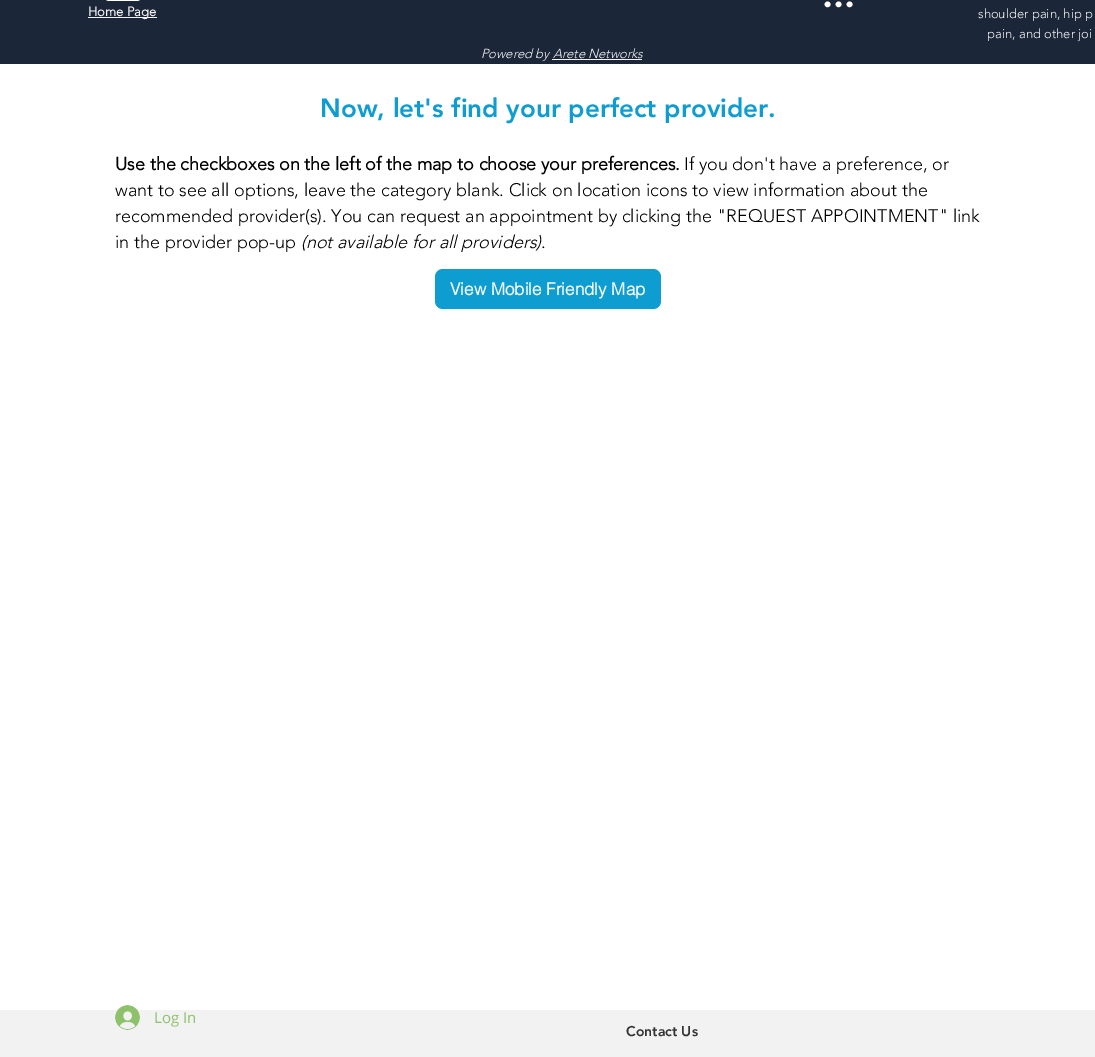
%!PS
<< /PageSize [1095 1057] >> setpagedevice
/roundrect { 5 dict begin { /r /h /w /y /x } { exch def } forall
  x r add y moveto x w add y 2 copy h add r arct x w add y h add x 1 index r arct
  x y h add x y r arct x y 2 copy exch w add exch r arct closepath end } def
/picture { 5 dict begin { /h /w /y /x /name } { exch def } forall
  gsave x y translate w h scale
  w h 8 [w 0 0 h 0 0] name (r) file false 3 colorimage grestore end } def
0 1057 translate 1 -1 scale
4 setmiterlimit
1 setgray
0 0 1095 1057 rectfill
0.11 0.149 0.224 setrgbcolor
0 0 1095 64 rectfill
/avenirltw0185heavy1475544-Black [38 0 0 -38 0 0] selectfont
1 setgray
822 7 moveto (...) show
(img1.rgb) 106 0 34 1 picture
0.949 setgray
88 17 69 1 rectfill
/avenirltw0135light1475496-Bold [13 0 0 -13 0 0] selectfont
88 16 moveto (Home Page) show
/avenirltw0135light1475496-Light [13 0 0 -13 0 0] selectfont
978 18 moveto (shoulder pain, hip p) show
987 38 moveto (pain, and other joi) show
/avenirltw0135light1475496-LightItalic [13 0 0 -13 0 0] selectfont
481 58 moveto (Powered by Arete Networks) show
552 59 90 1 rectfill
/avenirltw0185heavy1475544-Black [26 0 0 -26 0 0] selectfont
0.051 0.616 0.82 setrgbcolor
320 117 moveto (Now, let's find your perfect provider.) show
/avenirltw0135light1475496-Bold [18 0 0 -18 0 0] selectfont
0 setgray
115 170 moveto (Use the checkboxes on the left of the map to choose your preferences.) show
/avenirltw0135light1475496-Light [18 0 0 -18 0 0] selectfont
684 170 moveto (If you don't have a preference, or) show
115 196 moveto (want to see all options, leave the category blank. Click on location icons to view information about the) show
115 222 moveto (recommended provider\(s\). You can request an appointment by clicking the "REQUEST APPOINTMENT" link) show
115 248 moveto (in the provider pop-up) show
/avenirltw0135light1475496-LightItalic [18 0 0 -18 0 0] selectfont
301 248 moveto (\(not available for all providers\)) show
/avenirltw0135light1475496-Light [18 0 0 -18 0 0] selectfont
541 248 moveto (.) show
0.051 0.616 0.82 setrgbcolor
435 269 226 40 8 roundrect fill
/helvetica-Bold [17 0 0 -17 0 0] selectfont
1 setgray
450 295 moveto (View Mobile Friendly Map) show
0.949 setgray
0 1010 1095 47 rectfill
(img2.rgb) 115 1005 25 25 picture
/OpenSans-Regular [15 0 0 -15 0 0] selectfont
0.553 0.761 0.42 setrgbcolor
154 1023 moveto (Log In) show
/avenirltw0185heavy1475544-Black [14 0 0 -14 0 0] selectfont
0.2 setgray
626 1036 moveto (Contact Us) show
showpage
